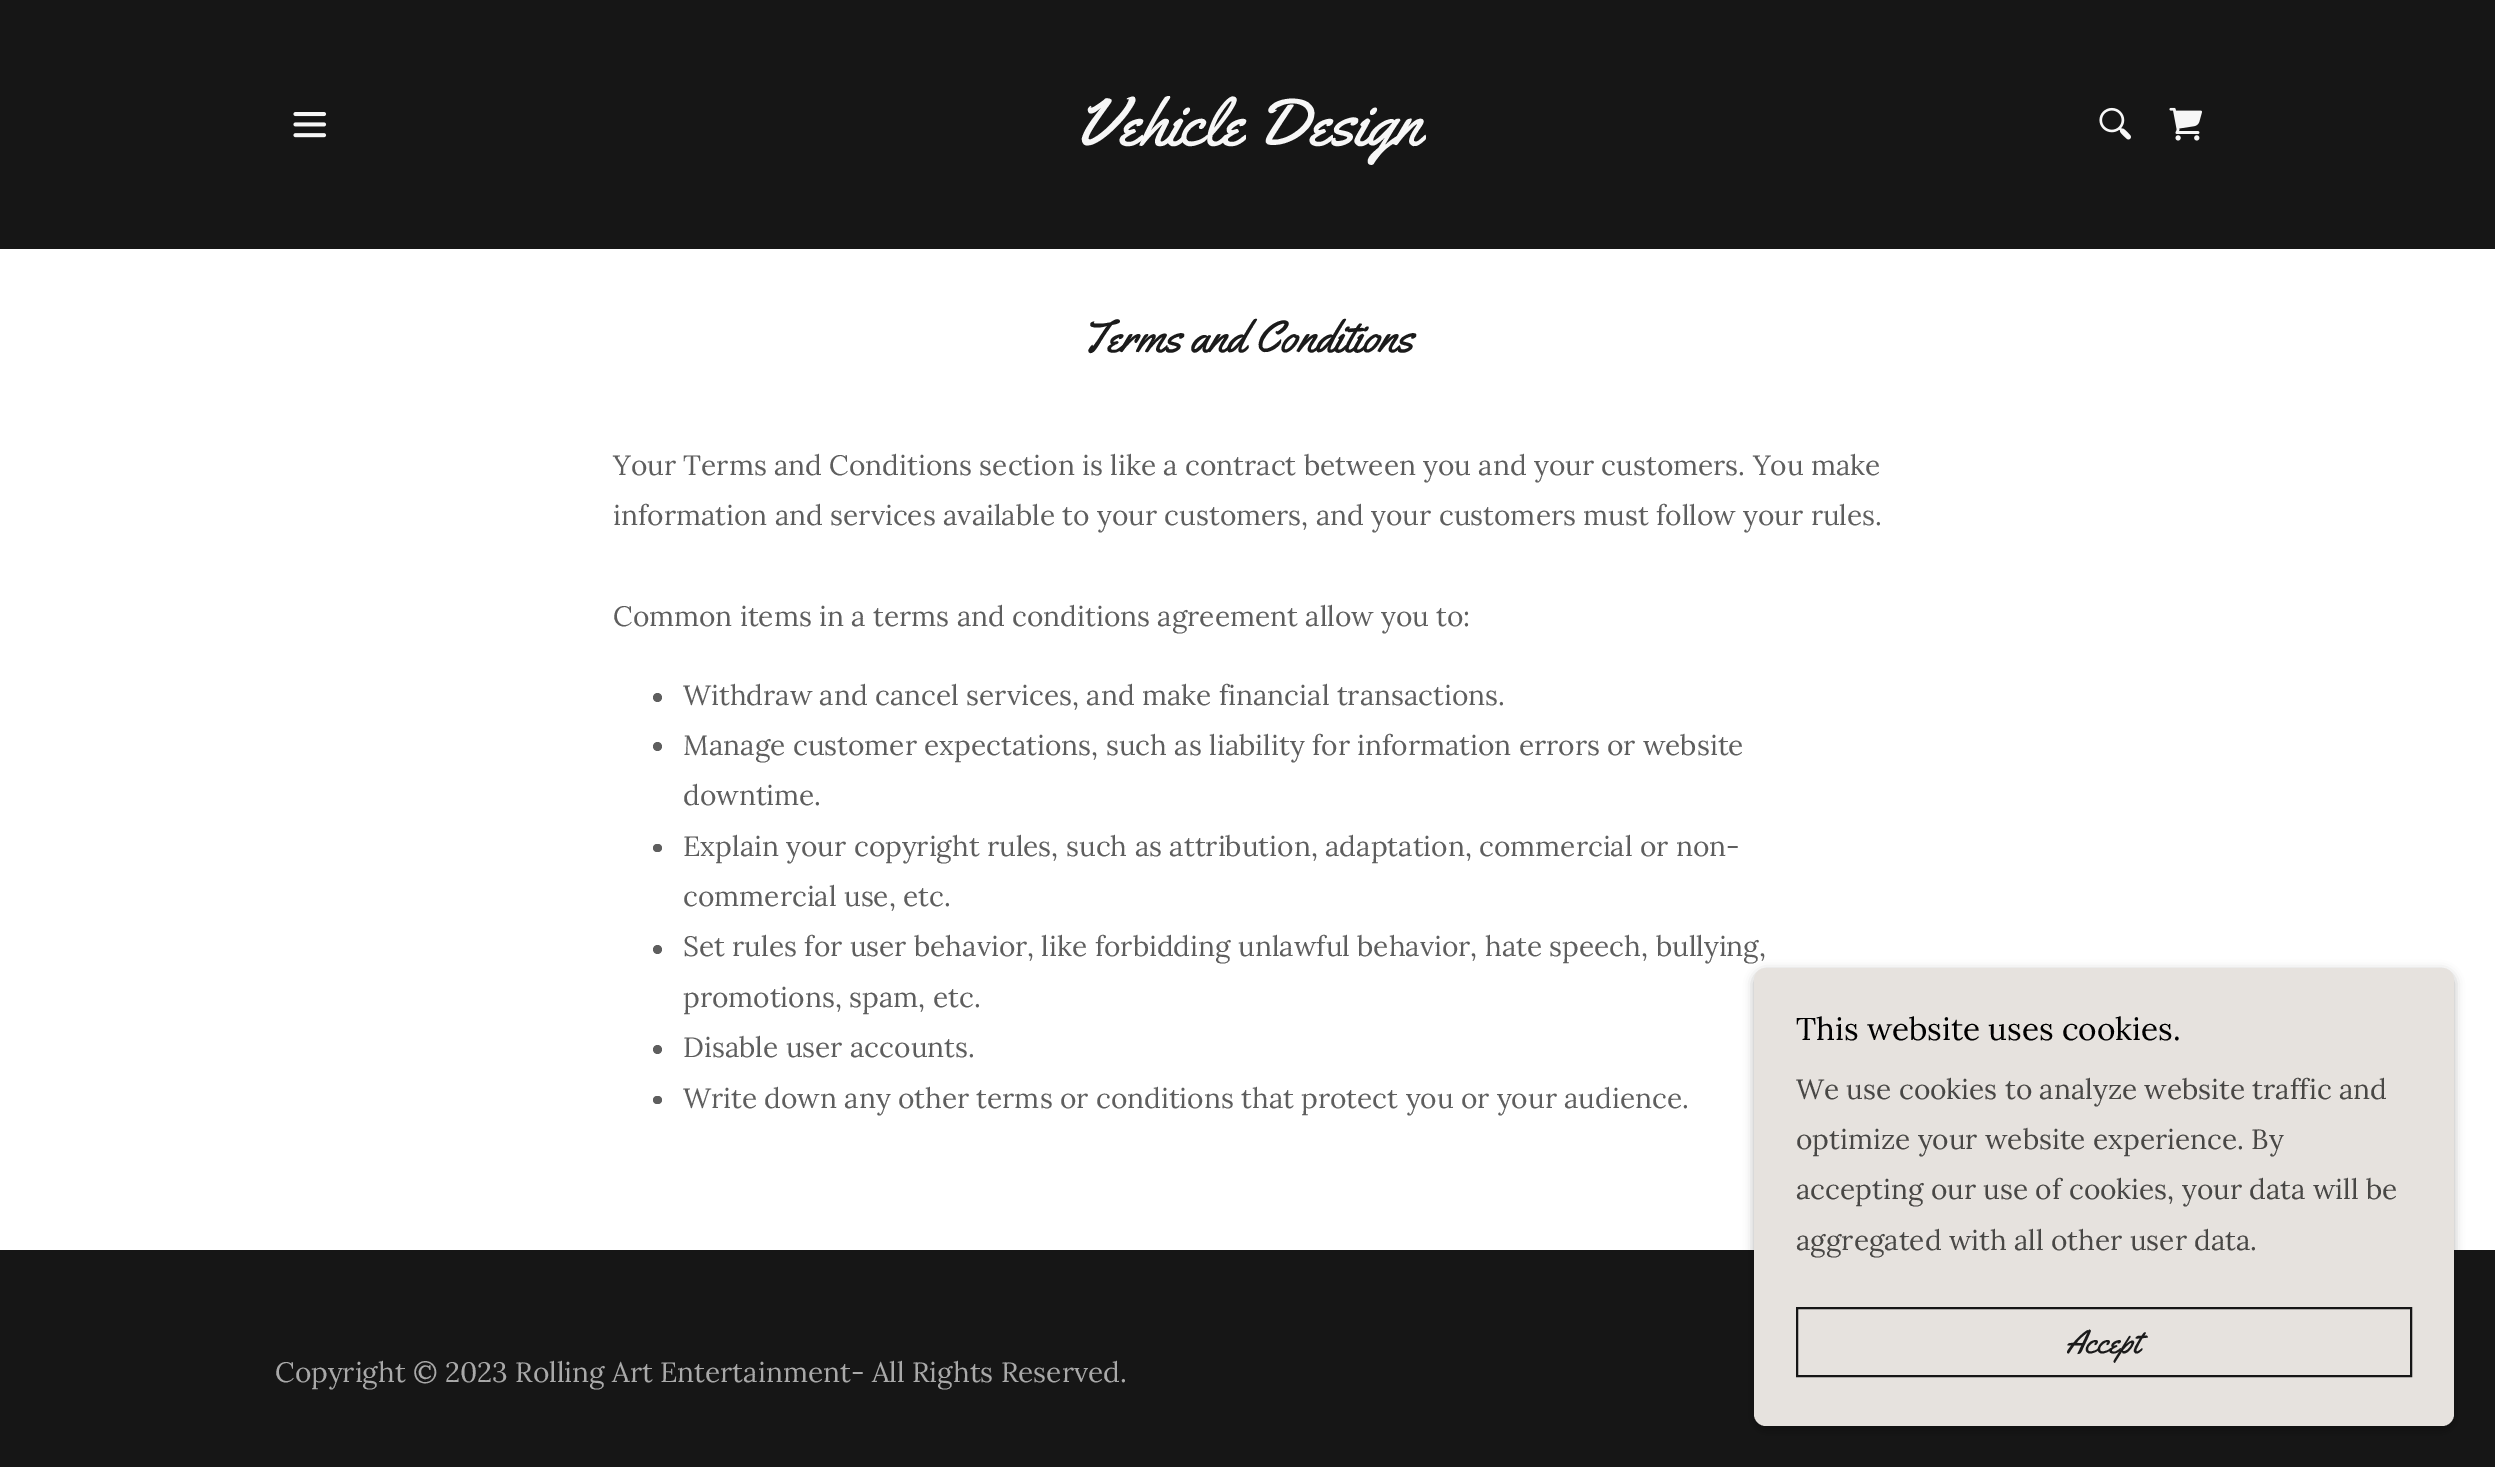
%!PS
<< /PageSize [2495 1467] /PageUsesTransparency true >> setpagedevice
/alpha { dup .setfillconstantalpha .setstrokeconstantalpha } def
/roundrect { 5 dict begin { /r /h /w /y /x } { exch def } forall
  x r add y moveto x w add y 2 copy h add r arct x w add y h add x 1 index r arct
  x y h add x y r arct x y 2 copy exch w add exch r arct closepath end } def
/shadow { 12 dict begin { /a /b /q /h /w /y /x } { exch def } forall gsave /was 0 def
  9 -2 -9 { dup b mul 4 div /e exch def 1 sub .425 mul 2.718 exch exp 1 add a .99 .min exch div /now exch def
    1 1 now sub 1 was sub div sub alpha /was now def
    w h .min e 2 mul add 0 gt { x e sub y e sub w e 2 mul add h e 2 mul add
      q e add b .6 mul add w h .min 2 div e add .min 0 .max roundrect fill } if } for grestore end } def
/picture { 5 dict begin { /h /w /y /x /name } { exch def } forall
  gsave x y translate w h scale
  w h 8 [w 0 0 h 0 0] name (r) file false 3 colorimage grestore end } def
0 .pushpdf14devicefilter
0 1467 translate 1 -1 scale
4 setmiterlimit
0.086 setgray
0 0 2495 1467 rectfill
(img1.rgb) 293 112 34 26 picture
/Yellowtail-Regular [66.5 0 0 -66.5 0 0] selectfont
0.969 setgray
1075 145 moveto (Vehicle Design) show
(img2.rgb) 2099 107 32 33 picture
(img3.rgb) 2169 107 33 34 picture
1 setgray
0 249 2495 1001 rectfill
/Yellowtail-Regular [45.5 0 0 -45.5 0 0] selectfont
0.106 setgray
1081 352 moveto (Terms and Conditions) show
/Lora-Regular [28 0 0 -28 0 0] selectfont
0.369 setgray
613 475 moveto (Your Terms and Conditions section is like a contract between you and your customers. You make) show
613 525 moveto (information and services available to your customers, and your customers must follow your rules.) show
613 626 moveto (Common items in a terms and conditions agreement allow you to:) show
newpath 657.5 697.5 4.5 0 360 arc closepath fill
683 705 moveto (Withdraw and cancel services, and make financial transactions.) show
newpath 657.5 746.5 4.5 0 360 arc closepath fill
683 755 moveto (Manage customer expectations, such as liability for information errors or website) show
683 805 moveto (downtime.) show
653 844 9 8 4 roundrect fill
683 856 moveto (Explain your copyright rules, such as attribution, adaptation, commercial or non-) show
683 906 moveto (commercial use, etc.) show
newpath 657.5 949.5 4.5 0 360 arc closepath fill
683 956 moveto (Set rules for user behavior, like forbidding unlawful behavior, hate speech, bullying,) show
683 1007 moveto (promotions, spam, etc.) show
newpath 657.5 1049.5 4.5 0 360 arc closepath fill
683 1057 moveto (Disable user accounts.) show
653 1096 9 8 4 roundrect fill
683 1108 moveto (Write down any other terms or conditions that protect you or your audience.) show
0 setgray
1754 971 700 459 12 5 0.3 shadow
0.902 0.886 0.871 setrgbcolor
1754 968 700 458 12 roundrect fill
/Lora-Regular [31.5 0 0 -31.5 0 0] selectfont
0 setgray
1796 1040 moveto (This website uses cookies.) show
/Lora-Regular [28 0 0 -28 0 0] selectfont
0.282 0.278 0.271 setrgbcolor
1796 1099 moveto (We use cookies to analyze website traffic and) show
1796 1149 moveto (optimize your website experience. By) show
1796 1199 moveto (accepting our use of cookies, your data will be) show
1796 1250 moveto (aggregated with all other user data.) show
0.086 setgray
2 setlinewidth
1797 1308 614 68 rectstroke
/Yellowtail-Regular [33 0 0 -33 0 0] selectfont
0.106 setgray
2066 1353 moveto (Accept) show
/Lora-Regular [28 0 0 -28 0 0] selectfont
0.663 setgray
275 1382 moveto (Copyright © 2023 Rolling Art Entertainment- All Rights Reserved.) show
.poppdf14devicefilter showpage
